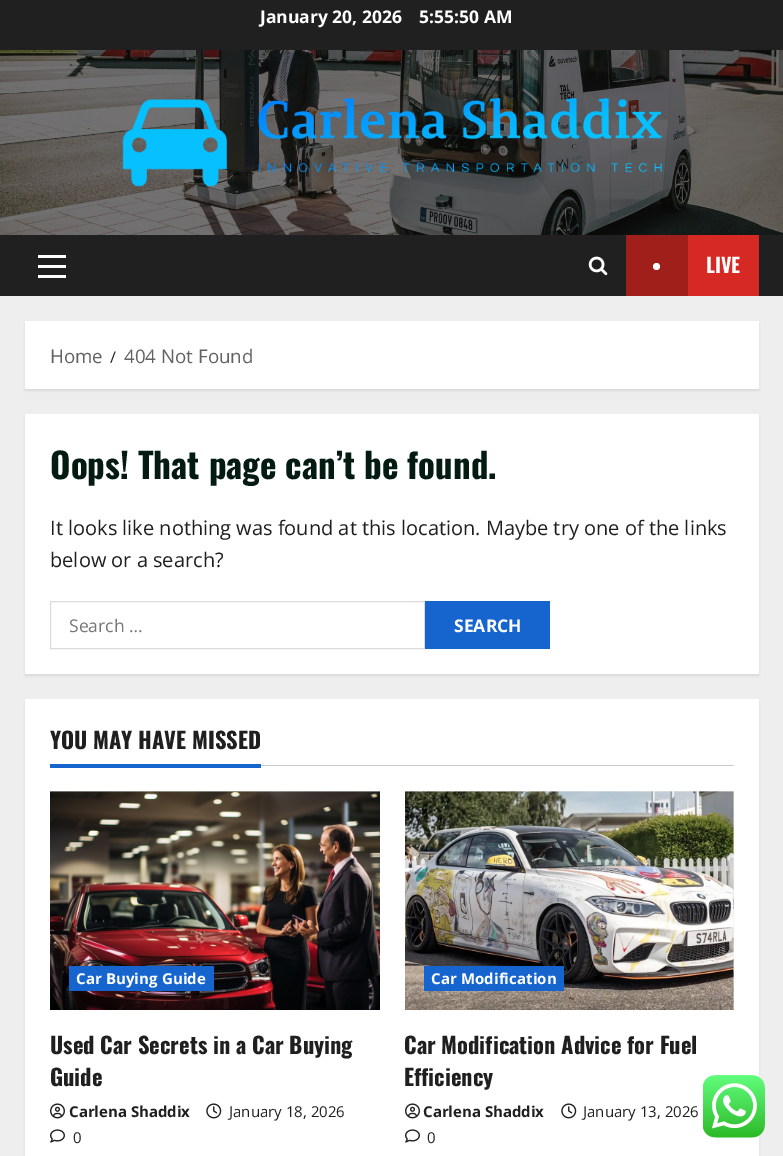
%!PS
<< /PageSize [783 1156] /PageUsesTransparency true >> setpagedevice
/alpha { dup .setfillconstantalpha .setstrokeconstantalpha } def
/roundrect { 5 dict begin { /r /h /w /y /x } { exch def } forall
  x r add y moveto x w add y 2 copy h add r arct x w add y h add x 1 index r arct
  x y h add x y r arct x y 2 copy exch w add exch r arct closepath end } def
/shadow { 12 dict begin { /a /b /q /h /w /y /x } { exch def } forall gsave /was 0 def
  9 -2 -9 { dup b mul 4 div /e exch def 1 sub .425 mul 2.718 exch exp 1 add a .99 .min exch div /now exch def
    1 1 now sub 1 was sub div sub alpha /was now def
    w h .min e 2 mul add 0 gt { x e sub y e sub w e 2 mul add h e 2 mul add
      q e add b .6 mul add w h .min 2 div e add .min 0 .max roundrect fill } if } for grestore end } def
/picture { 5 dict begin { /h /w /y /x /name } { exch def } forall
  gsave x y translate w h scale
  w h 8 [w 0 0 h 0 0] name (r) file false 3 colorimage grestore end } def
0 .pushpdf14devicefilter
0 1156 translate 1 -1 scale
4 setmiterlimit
0.933 setgray
0 0 783 1156 rectfill
0.125 setgray
0 0 783 50 rectfill
/OpenSans-Bold [17.5 0 0 -17.5 0 0] selectfont
1 setgray
260 23 moveto (January 20, 2026) show
419 23 moveto (5:55:50 AM) show
(img1.rgb) 0 50 783 185 picture
(img2.rgb) 122 97 540 90 picture
0.125 setgray
0 235 783 61 rectfill
1 setgray
38 265 28 3 rectfill
38 255 28 3 rectfill
38 275 28 3 rectfill
(img3.rgb) 588 256 20 20 picture
0.843 0.161 0.141 setrgbcolor
688 235 71 61 rectfill
0.631 0.122 0.106 setrgbcolor
626 235 62 61 rectfill
1 setgray
newpath 656.5 266.5 3.5 0 360 arc closepath fill
/Oswald-Bold [20 0 0 -20 0 0] selectfont
706 273 moveto (LIVE) show
0 setgray
25 324 734 67 0 1 0.08 shadow
1 setgray
25 321 734 68 rectfill
/OpenSans-Regular [18.75 0 0 -18.75 0 0] selectfont
0.384 setgray
50 363 moveto (Home) show
/OpenSans-Regular [16 0 0 -16 0 0] selectfont
0.122 setgray
110 363 moveto (/) show
/OpenSans-Regular [18.75 0 0 -18.75 0 0] selectfont
0.384 setgray
124 363 moveto (404 Not Found) show
0 setgray
25 416 734 260 0 1 0.08 shadow
1 setgray
25 414 734 260 rectfill
/Oswald-Bold [35 0 0 -35 0 0] selectfont
0.012 0.106 0.067 setrgbcolor
50 479 moveto (Oops! That page can’t be found.) show
/OpenSans-Regular [20 0 0 -20 0 0] selectfont
0.122 setgray
50 535 moveto (It looks like nothing was found at this location. Maybe try one of the links) show
50 567 moveto (below or a search?) show
0.863 setgray
50.5 601.5 374 47 rectstroke
/OpenSans-Regular [17.5 0 0 -17.5 0 0] selectfont
0.459 setgray
69 632 moveto (Search …) show
0.086 0.396 0.812 setrgbcolor
425 601 125 48 rectfill
/OpenSans-Bold [17.5 0 0 -17.5 0 0] selectfont
1 setgray
454 632 moveto (SEARCH) show
0 setgray
25 701 734 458 0 1 0.08 shadow
1 setgray
25 699 734 457 rectfill
0.8 setgray
261 765 473 1 rectfill
/Oswald-Bold [22.5 0 0 -22.5 0 0] selectfont
0.122 setgray
50 749 moveto (YOU MAY HAVE MISSED) show
0.086 0.396 0.812 setrgbcolor
50 764 211 4 rectfill
0.925 setgray
50 791 330 1 rectfill
(img4.rgb) 50 791 330 219 picture
0.086 0.396 0.812 setrgbcolor
69 966 145 25 rectfill
/OpenSans-Bold [15 0 0 -15 0 0] selectfont
1 setgray
76 984 moveto 0.1 0 (Car Buying Guide) ashow
/Oswald-Bold [22.5 0 0 -22.5 0 0] selectfont
0.122 setgray
50 1054 moveto (Used Car Secrets in a Car Buying) show
50 1086 moveto (Guide) show
(img5.rgb) 50 1103 15 16 picture
/OpenSans-Bold [15 0 0 -15 0 0] selectfont
69 1117 moveto (Carlena Shaddix) show
(img6.rgb) 206 1103 16 16 picture
/OpenSans-Regular [15 0 0 -15 0 0] selectfont
229 1117 moveto (January 18, 2026) show
(img7.rgb) 50 1129 15 14 picture
73 1143 moveto (0) show
0.925 setgray
405 791 329 219 rectfill
(img8.rgb) 405 791 329 219 picture
0.086 0.396 0.812 setrgbcolor
424 966 140 25 rectfill
/OpenSans-Bold [15 0 0 -15 0 0] selectfont
1 setgray
431 984 moveto 0.1 0 (Car Modification) ashow
/Oswald-Bold [22.5 0 0 -22.5 0 0] selectfont
0.122 setgray
404 1054 moveto (Car Modification Advice for Fuel) show
404 1086 moveto (Efficiency) show
(img5.rgb) 405 1103 15 16 picture
/OpenSans-Bold [15 0 0 -15 0 0] selectfont
423 1117 moveto (Carlena Shaddix) show
(img6.rgb) 561 1103 16 16 picture
/OpenSans-Regular [15 0 0 -15 0 0] selectfont
583 1117 moveto (January 13, 2026) show
(img7.rgb) 405 1129 15 14 picture
427 1143 moveto (0) show
(img9.rgb) 703 1075 62 63 picture
.poppdf14devicefilter showpage
